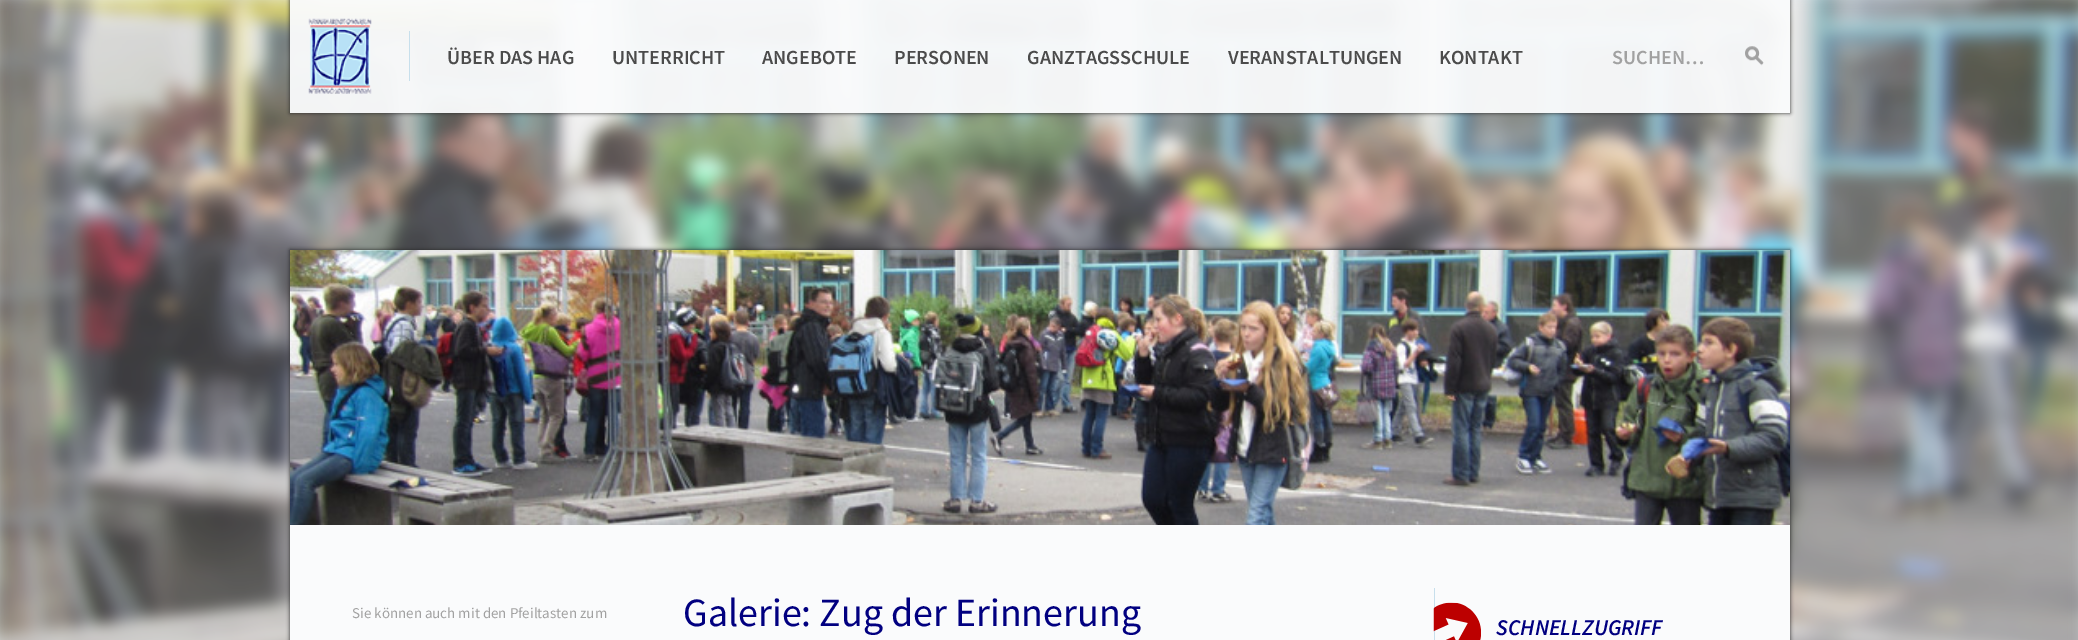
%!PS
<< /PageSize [2078 640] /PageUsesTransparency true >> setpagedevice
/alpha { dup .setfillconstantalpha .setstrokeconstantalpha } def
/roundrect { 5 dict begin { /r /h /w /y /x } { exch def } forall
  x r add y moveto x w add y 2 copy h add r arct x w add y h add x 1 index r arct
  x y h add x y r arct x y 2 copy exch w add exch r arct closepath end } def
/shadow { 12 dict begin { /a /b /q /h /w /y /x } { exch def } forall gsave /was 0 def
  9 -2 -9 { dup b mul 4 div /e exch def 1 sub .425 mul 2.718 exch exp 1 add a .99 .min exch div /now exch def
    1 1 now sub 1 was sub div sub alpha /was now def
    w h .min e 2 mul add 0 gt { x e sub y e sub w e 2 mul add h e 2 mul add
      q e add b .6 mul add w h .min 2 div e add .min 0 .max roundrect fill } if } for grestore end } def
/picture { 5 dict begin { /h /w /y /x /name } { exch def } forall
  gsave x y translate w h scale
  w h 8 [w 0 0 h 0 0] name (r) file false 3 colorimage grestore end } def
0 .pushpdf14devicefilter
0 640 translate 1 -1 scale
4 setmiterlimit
1 setgray
0 0 2078 640 rectfill
(img1.rgb) 0 0 2078 640 picture
gsave
newpath 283 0 moveto 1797 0 lineto 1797 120 lineto 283 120 lineto closepath 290 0 moveto 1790 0 lineto 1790 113 lineto 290 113 lineto closepath eoclip newpath
0.141 setgray
290 0 1500 113 0 2 1 shadow
grestore
0.95 alpha
0.98 0.984 0.988 setrgbcolor
290 0 1500 113 rectfill
1 alpha
(img2.rgb) 308 18 64 76 picture
0.78 0.875 0.925 setrgbcolor
409 31 1 50 rectfill
/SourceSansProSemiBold-SemiBold [20 0 0 -20 0 0] selectfont
0.294 setgray
447 64 moveto (ÜBER DAS HAG) show
612 64 moveto (UNTERRICHT) show
762 64 moveto (ANGEBOTE) show
894 64 moveto (PERSONEN) show
1027 64 moveto (GANZTAGSSCHULE) show
1228 64 moveto (VERANSTALTUNGEN) show
1439 64 moveto (KONTAKT) show
0.631 setgray
1612 64 moveto (SUCHEN…) show
(img3.rgb) 1745 46 19 20 picture
0.141 setgray
290 250 1500 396 0 2 1 shadow
0.98 0.984 0.988 setrgbcolor
290 525 1500 115 rectfill
(img4.rgb) 290 250 1500 275 picture
/SourceSansPro-Regular [15 0 0 -15 0 0] selectfont
0.631 setgray
352 618 moveto (Sie können auch mit den Pfeiltasten zum) show
/SourceSansPro-Regular [40 0 0 -40 0 0] selectfont
0.004 0 0.502 setrgbcolor
683 626 moveto (Galerie: Zug der Erinnerung) show
0.78 0.875 0.925 setrgbcolor
1434 588 1 52 rectfill
(img5.rgb) 1433 602 48 38 picture
/SourceSansProSemiBold-SemiBoldItalic [22.5 0 0 -22.5 0 0] selectfont
0.004 0 0.502 setrgbcolor
1496 635 moveto (SCHNELLZUGRIFF) show
.poppdf14devicefilter showpage
